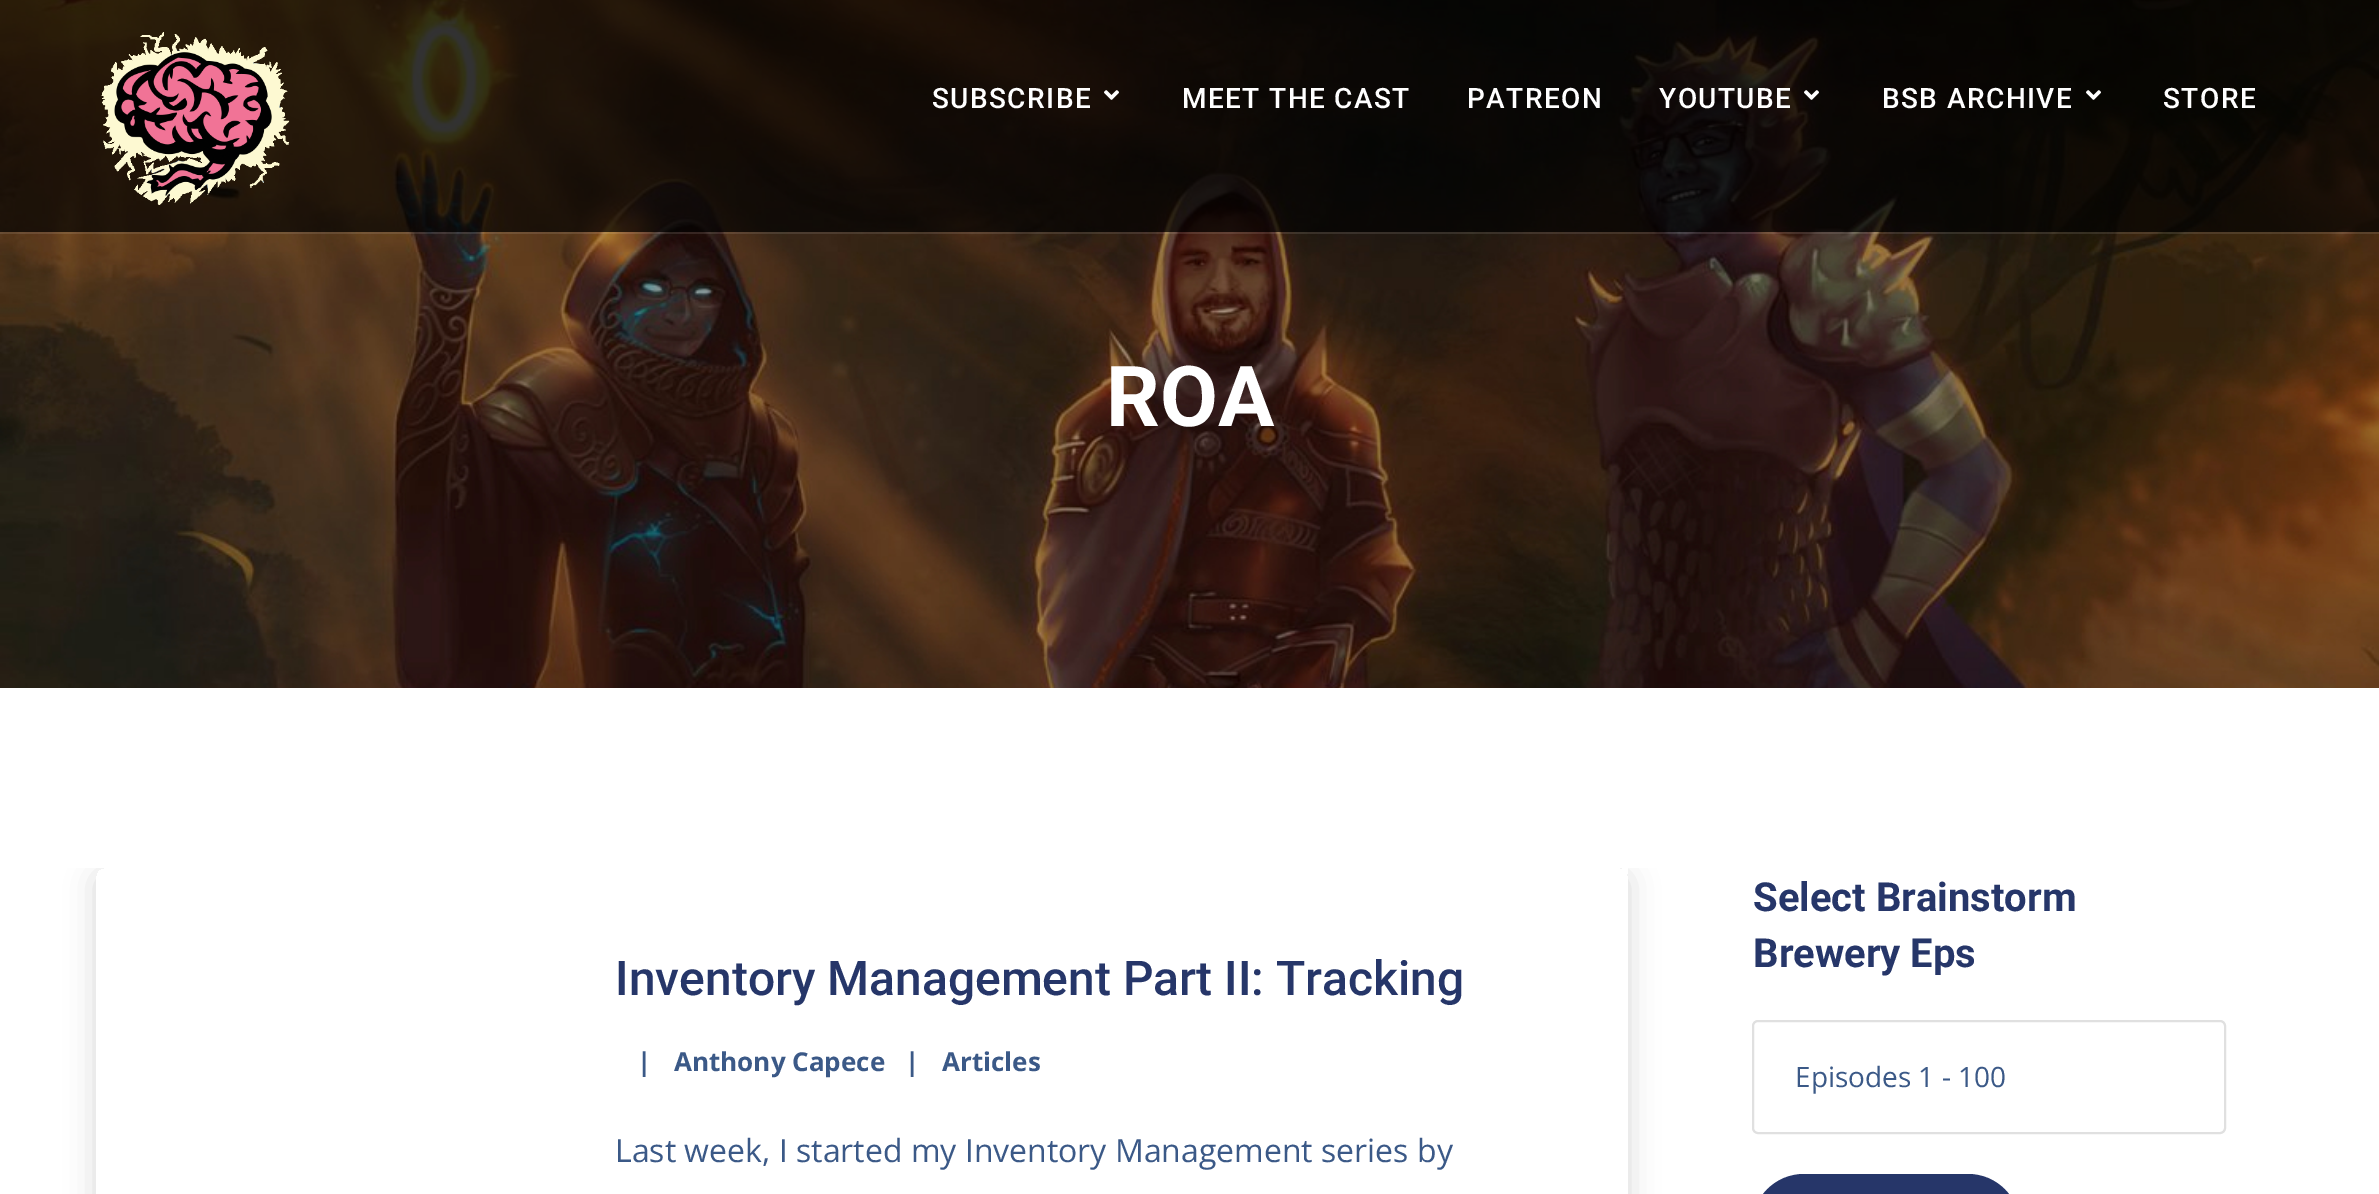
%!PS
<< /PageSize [2379 1194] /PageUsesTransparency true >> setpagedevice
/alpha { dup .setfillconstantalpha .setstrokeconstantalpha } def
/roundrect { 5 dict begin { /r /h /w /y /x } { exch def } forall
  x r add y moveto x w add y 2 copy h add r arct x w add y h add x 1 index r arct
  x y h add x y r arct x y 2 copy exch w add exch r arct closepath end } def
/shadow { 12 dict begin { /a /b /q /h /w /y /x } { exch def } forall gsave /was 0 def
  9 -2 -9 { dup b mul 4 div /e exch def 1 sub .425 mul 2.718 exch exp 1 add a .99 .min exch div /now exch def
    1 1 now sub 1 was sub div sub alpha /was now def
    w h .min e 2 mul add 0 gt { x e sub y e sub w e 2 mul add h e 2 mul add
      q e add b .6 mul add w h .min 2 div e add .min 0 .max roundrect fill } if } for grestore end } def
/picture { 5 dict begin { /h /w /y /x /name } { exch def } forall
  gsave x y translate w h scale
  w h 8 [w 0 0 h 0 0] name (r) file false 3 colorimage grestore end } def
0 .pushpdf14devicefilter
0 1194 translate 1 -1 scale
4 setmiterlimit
1 setgray
0 0 2379 1194 rectfill
(img5.rgb) 0 0 2379 688 picture
0.7 alpha
0 setgray
0 0 2379 232 rectfill
1 alpha
(img1.rgb) 101 32 189 173 picture
/Roboto-Medium [28 0 0 -28 0 0] selectfont
1 setgray
932 108 moveto 1.4 0 (SUBSCRIBE) ashow
(img2.rgb) 1104 90 15 10 picture
1182 108 moveto 1.4 0 (MEET THE CAST) ashow
1467 108 moveto 1.4 0 (PATREON) ashow
1659 108 moveto 1.4 0 (YOUTUBE) ashow
(img3.rgb) 1804 90 15 10 picture
1882 108 moveto 1.4 0 (BSB ARCHIVE) ashow
(img4.rgb) 2086 90 15 10 picture
2163 108 moveto 1.4 0 (STORE) ashow
0.1 alpha
0 232 2379 2 rectfill
/Roboto-Bold [84 0 0 -84 0 0] selectfont
1 alpha
1106 426 moveto (ROA) show
gsave
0 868 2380 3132 rectclip
newpath 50 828 moveto 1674 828 lineto 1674 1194 lineto 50 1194 lineto closepath 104 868 moveto 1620 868 lineto 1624.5 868 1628 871.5 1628 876 curveto 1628 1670 lineto 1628 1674.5 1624.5 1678 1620 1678 curveto 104 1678 lineto 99.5 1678 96 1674.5 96 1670 curveto 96 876 lineto 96 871.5 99.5 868 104 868 curveto closepath eoclip newpath
0 setgray
96 874 1532 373 8 15 0.15 shadow
grestore
1622 868 6 6 rectfill
/Roboto-Medium [48 0 0 -48 0 0] selectfont
0.149 0.212 0.412 setrgbcolor
615 995 moveto (Inventory Management Part II: Tracking) show
/OpenSans-Bold [26 0 0 -26 0 0] selectfont
0.231 0.349 0.529 setrgbcolor
637 1071 moveto (|) show
674 1071 moveto (Anthony Capece) show
905 1071 moveto (|) show
942 1071 moveto (Articles) show
/OpenSans-Regular [32 0 0 -32 0 0] selectfont
615 1162 moveto (Last week, I started my Inventory Management series by) show
/Roboto-Bold [40 0 0 -40 0 0] selectfont
0.149 0.212 0.412 setrgbcolor
1753 911 moveto (Select Brainstorm) show
1753 967 moveto (Brewery Eps) show
0.878 setgray
2 setlinewidth
1753 1021 472 112 5 roundrect stroke
/OpenSans-Regular [28 0 0 -28 0 0] selectfont
0.231 0.349 0.529 setrgbcolor
1795 1087 moveto (Episodes 1 - 100) show
0.149 0.212 0.412 setrgbcolor
1752 1174 268 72 52 roundrect fill
.poppdf14devicefilter showpage
